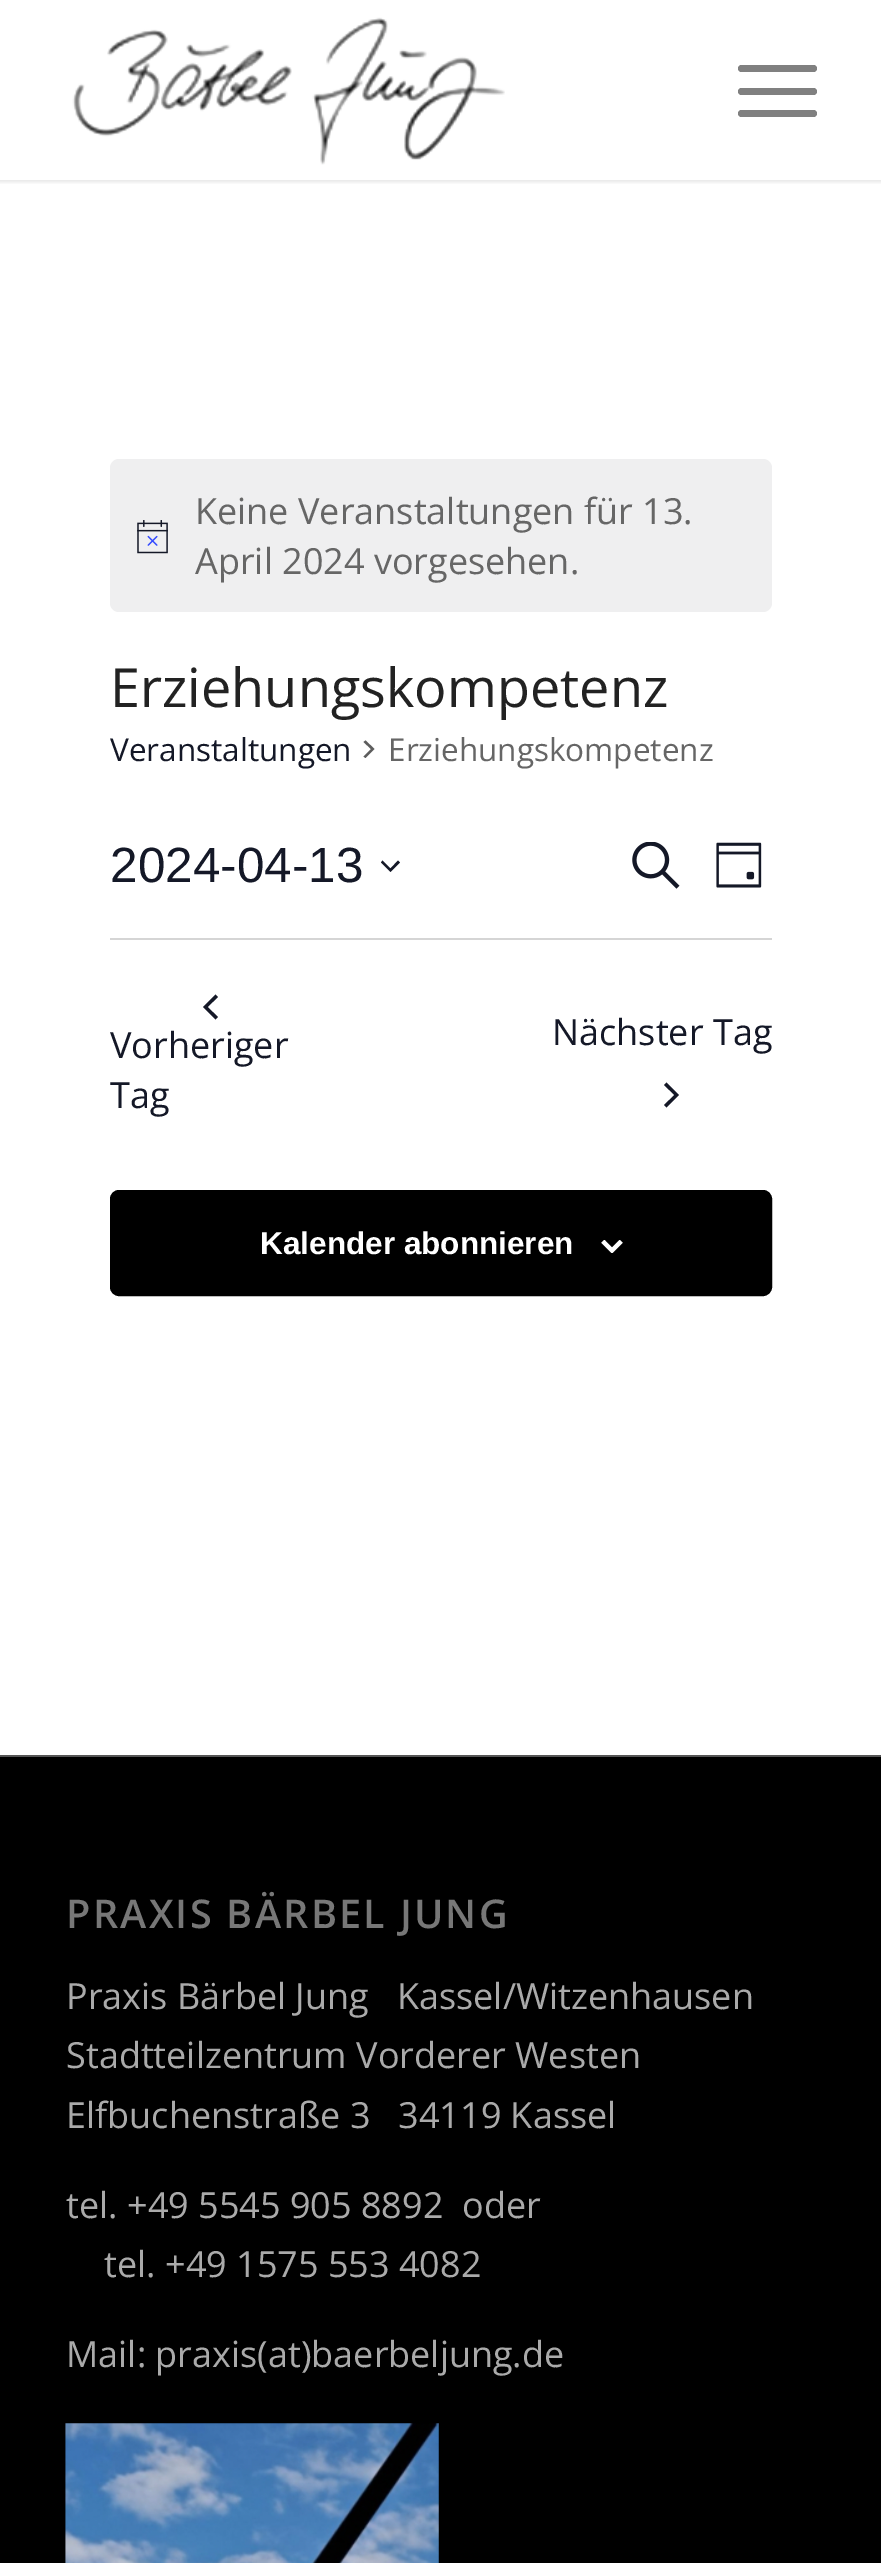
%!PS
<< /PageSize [881 2563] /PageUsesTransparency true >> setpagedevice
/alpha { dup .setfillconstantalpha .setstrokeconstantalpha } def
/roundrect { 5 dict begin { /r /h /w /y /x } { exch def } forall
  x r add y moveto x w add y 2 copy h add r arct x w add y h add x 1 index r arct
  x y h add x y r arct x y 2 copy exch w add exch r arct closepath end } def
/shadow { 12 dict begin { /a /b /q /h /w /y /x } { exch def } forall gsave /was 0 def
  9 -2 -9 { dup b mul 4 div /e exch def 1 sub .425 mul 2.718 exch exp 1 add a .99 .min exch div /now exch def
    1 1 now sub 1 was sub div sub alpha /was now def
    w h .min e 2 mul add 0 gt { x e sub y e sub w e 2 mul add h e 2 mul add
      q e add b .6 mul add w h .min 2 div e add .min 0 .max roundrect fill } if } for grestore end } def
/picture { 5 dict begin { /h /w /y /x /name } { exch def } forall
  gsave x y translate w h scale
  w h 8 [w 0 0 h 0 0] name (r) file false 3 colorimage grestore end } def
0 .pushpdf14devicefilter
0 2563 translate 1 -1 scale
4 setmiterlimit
1 setgray
0 0 881 2563 rectfill
gsave
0 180 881 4 rectclip
0 setgray
-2 -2 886 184 0 2 0.1 shadow
grestore
(img1.rgb) 72 17 433 148 picture
0.502 setgray
738 88 79 7 3.5 roundrect fill
738 65 79 7 3.5 roundrect fill
738 110 79 7 3.5 roundrect fill
0.937 0.937 0.941 setrgbcolor
110 459 662 153 9 roundrect fill
(img2.rgb) 137 520 31 34 picture
/OpenSans-Regular [36 0 0 -36 0 0] selectfont
0.4 setgray
195 524 moveto (Keine Veranstaltungen für 13.) show
195 574 moveto (April 2024 vorgesehen.) show
/OpenSans-Regular [54 0 0 -54 0 0] selectfont
0.133 setgray
110 707 moveto (Erziehungskompetenz) show
/OpenSans-Regular [31.5 0 0 -31.5 0 0] selectfont
0.078 0.094 0.153 setrgbcolor
110 761 moveto (Veranstaltungen) show
0.365 setgray
newpath 363.5 742 moveto 365.5 740.5 lineto 374.5 749 lineto 365.5 758 lineto 363.5 756.5 lineto 371 749 lineto closepath fill
0.4 setgray
388 761 moveto (Erziehungskompetenz) show
/LiberationSans-Regular [49.5 0 0 -49.5 0 0] selectfont
0.078 0.094 0.153 setrgbcolor
110 882 moveto (2024-04-13) show
newpath 382.5 860.5 moveto 390.5 868.5 lineto 398 860.5 lineto 400 862.5 lineto 390.5 872 lineto 381 862.5 lineto closepath eofill
(img3.rgb) 632 842 48 47 picture
(img4.rgb) 716 842 46 46 picture
0.835 setgray
110 938 662 2 rectfill
0.078 0.094 0.153 setrgbcolor
newpath 218 1017 moveto 215.5 1019.5 lineto 203 1007 lineto 215.5 994.5 lineto 218 997 lineto 207.5 1007 lineto closepath fill
/OpenSans-Regular [36 0 0 -36 0 0] selectfont
110 1058 moveto (Vorheriger) show
110 1108 moveto (Tag) show
552 1045 moveto (Nächster Tag) show
newpath 664 1085 moveto 666.5 1082.5 lineto 679 1095 lineto 666.5 1107.5 lineto 664 1105 lineto 674.5 1095 lineto closepath fill
0 setgray
111 1191 660 104 8 roundrect gsave fill grestore
2 setlinewidth
stroke
/LiberationSans-Bold [31.5 0 0 -31.5 0 0] selectfont
1 setgray
260 1254 moveto (Kalender abonnieren) show
(img5.rgb) 601 1240 22 13 picture
0 setgray
0 1757 881 806 rectfill
0.333 setgray
0 1755 881 2 rectfill
/OpenSans-SemiBold [39.6 0 0 -39.6 0 0] selectfont
0.467 setgray
66 1928 moveto 2.25 0 (PRAXIS BÄRBEL JUNG) ashow
/OpenSans-Regular [36 0 0 -36 0 0] selectfont
0.667 setgray
66 2009 moveto (Praxis Bärbel Jung   Kassel/Witzenhausen) show
66 2068 moveto (Stadtteilzentrum Vorderer Westen) show
66 2128 moveto (Elfbuchenstraße 3   34119 Kassel) show
66 2218 moveto (tel. +49 5545 905 8892  oder) show
104 2277 moveto (tel. +49 1575 553 4082) show
66 2367 moveto (Mail: praxis\(at\)baerbeljung.de) show
(img6.rgb) 65 2423 374 140 picture
.poppdf14devicefilter showpage
